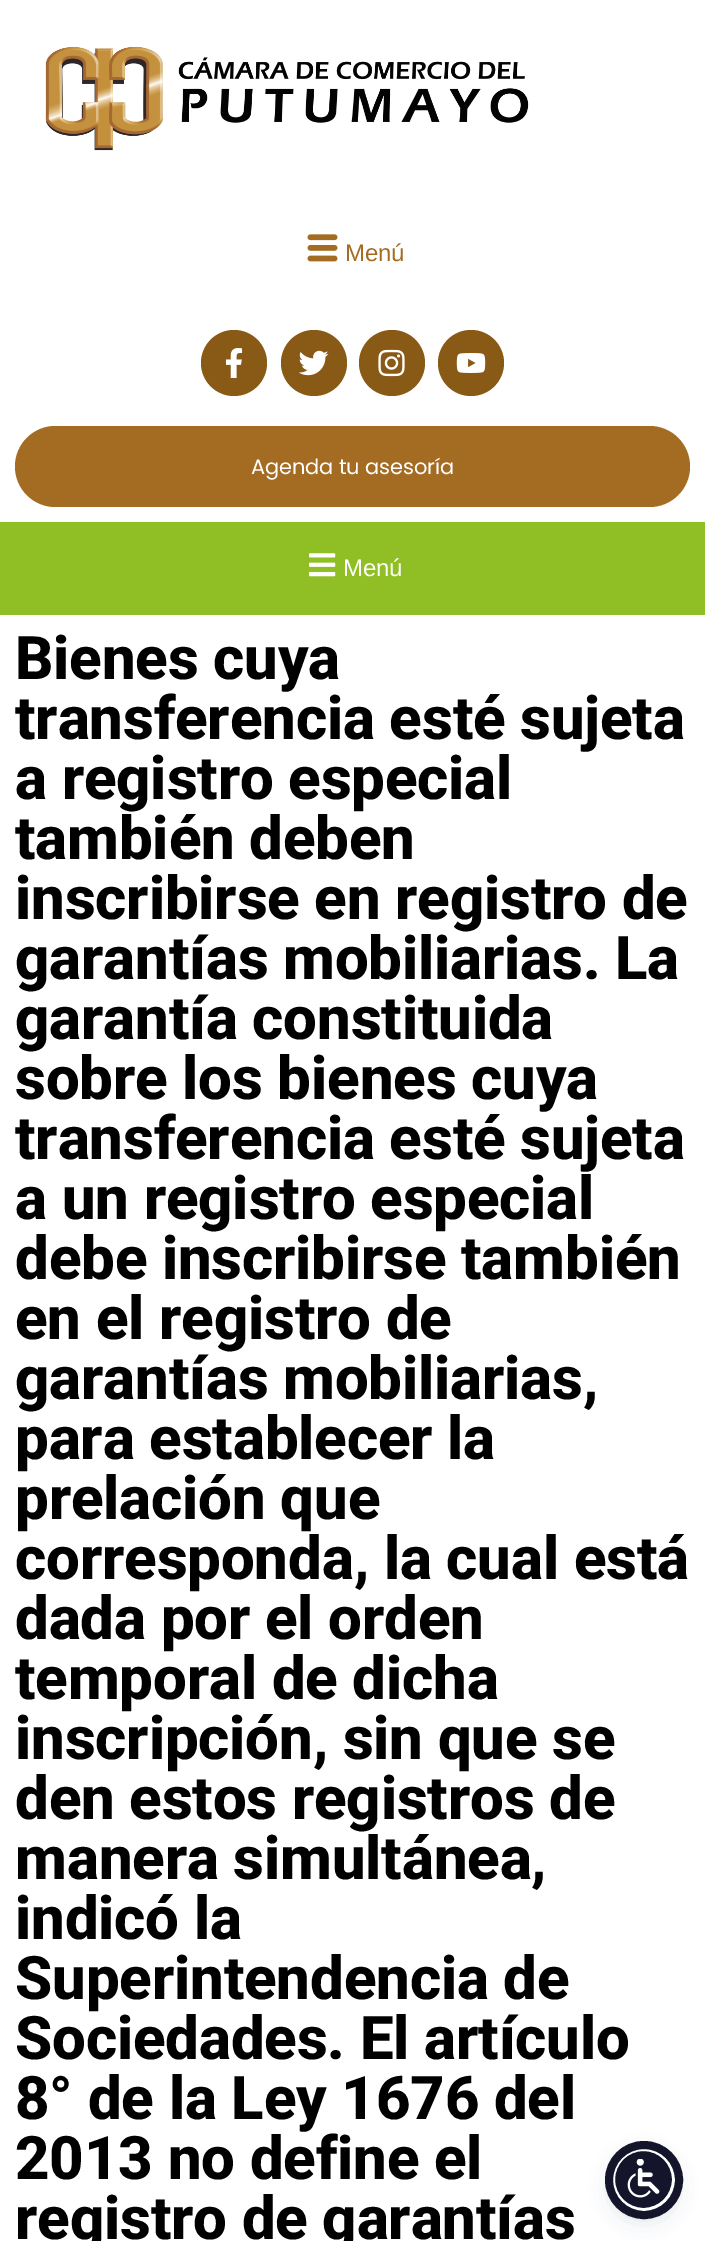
%!PS
<< /PageSize [705 2241] /PageUsesTransparency true >> setpagedevice
/alpha { dup .setfillconstantalpha .setstrokeconstantalpha } def
/roundrect { 5 dict begin { /r /h /w /y /x } { exch def } forall
  x r add y moveto x w add y 2 copy h add r arct x w add y h add x 1 index r arct
  x y h add x y r arct x y 2 copy exch w add exch r arct closepath end } def
/shadow { 12 dict begin { /a /b /q /h /w /y /x } { exch def } forall gsave /was 0 def
  9 -2 -9 { dup b mul 4 div /e exch def 1 sub .425 mul 2.718 exch exp 1 add a .99 .min exch div /now exch def
    1 1 now sub 1 was sub div sub alpha /was now def
    w h .min e 2 mul add 0 gt { x e sub y e sub w e 2 mul add h e 2 mul add
      q e add b .6 mul add w h .min 2 div e add .min 0 .max roundrect fill } if } for grestore end } def
/picture { 5 dict begin { /h /w /y /x /name } { exch def } forall
  gsave x y translate w h scale
  w h 8 [w 0 0 h 0 0] name (r) file false 3 colorimage grestore end } def
0 .pushpdf14devicefilter
0 2241 translate 1 -1 scale
4 setmiterlimit
1 setgray
0 0 705 2241 rectfill
(img1.rgb) 45 46 484 105 picture
(img2.rgb) 307 234 31 28 picture
/LiberationSans-Regular [24 0 0 -24 0 0] selectfont
0.643 0.424 0.133 setrgbcolor
345 261 moveto -0.15 0 (Menú) ashow
0.537 0.349 0.086 setrgbcolor
newpath 234 363 33 0 360 arc closepath fill
(img3.rgb) 225 348 18 30 picture
newpath 314 363 33 0 360 arc closepath fill
(img4.rgb) 299 350 30 26 picture
newpath 392 363 33 0 360 arc closepath fill
(img5.rgb) 378 349 27 28 picture
newpath 471 363 33 0 360 arc closepath fill
(img6.rgb) 456 353 30 20 picture
0.643 0.424 0.133 setrgbcolor
15 426 675 81 40.5 roundrect fill
/Poppins-Regular [21 0 0 -21 0 0] selectfont
1 setgray
251 474 moveto -0.15 0 (Agenda tu asesoría) ashow
0.561 0.749 0.141 setrgbcolor
0 522 705 93 rectfill
(img7.rgb) 309 553 27 24 picture
/LiberationSans-Regular [24 0 0 -24 0 0] selectfont
1 setgray
343 576 moveto -0.15 0 (Menú) ashow
/Roboto-ExtraBold [60 0 0 -60 0 0] selectfont
0 setgray
15 679 moveto -0.15 0 (Bienes cuya) ashow
15 739 moveto -0.15 0 (transferencia esté sujeta) ashow
15 799 moveto -0.15 0 (a registro especial) ashow
15 859 moveto -0.15 0 (también deben) ashow
15 919 moveto -0.15 0 (inscribirse en registro de) ashow
15 979 moveto -0.15 0 (garantías mobiliarias. La) ashow
15 1039 moveto -0.15 0 (garantía constituida) ashow
15 1099 moveto -0.15 0 (sobre los bienes cuya) ashow
15 1159 moveto -0.15 0 (transferencia esté sujeta) ashow
15 1219 moveto -0.15 0 (a un registro especial) ashow
15 1279 moveto -0.15 0 (debe inscribirse también) ashow
15 1339 moveto -0.15 0 (en el registro de) ashow
15 1399 moveto -0.15 0 (garantías mobiliarias,) ashow
15 1459 moveto -0.15 0 (para establecer la) ashow
15 1519 moveto -0.15 0 (prelación que) ashow
15 1579 moveto -0.15 0 (corresponda, la cual está) ashow
15 1639 moveto -0.15 0 (dada por el orden) ashow
15 1699 moveto -0.15 0 (temporal de dicha) ashow
15 1759 moveto -0.15 0 (inscripción, sin que se) ashow
15 1819 moveto -0.15 0 (den estos registros de) ashow
15 1879 moveto -0.15 0 (manera simultánea,) ashow
15 1939 moveto -0.15 0 (indicó la) ashow
15 1999 moveto -0.15 0 (Superintendencia de) ashow
15 2059 moveto -0.15 0 (Sociedades. El artículo) ashow
15 2119 moveto -0.15 0 (8° de la Ley 1676 del) ashow
15 2179 moveto -0.15 0 (2013 no define el) ashow
15 2239 moveto -0.15 0 (registro de garantías) ashow
0.365 0.392 0.58 setrgbcolor
612 2151 63 63 31.5 3 0.2 shadow
0.145 0.173 0.38 setrgbcolor
612 2156 63 63 31.5 11 0.15 shadow
0.078 0.078 0.165 setrgbcolor
newpath 643.5 2179.5 30 0 360 arc closepath gsave fill grestore
1 setgray
3 setlinewidth
stroke
0.078 0.078 0.165 setrgbcolor
8 setlinewidth
newpath 644 2180 35 0 360 arc closepath stroke
(img8.rgb) 627 2159 33 39 picture
.poppdf14devicefilter showpage
